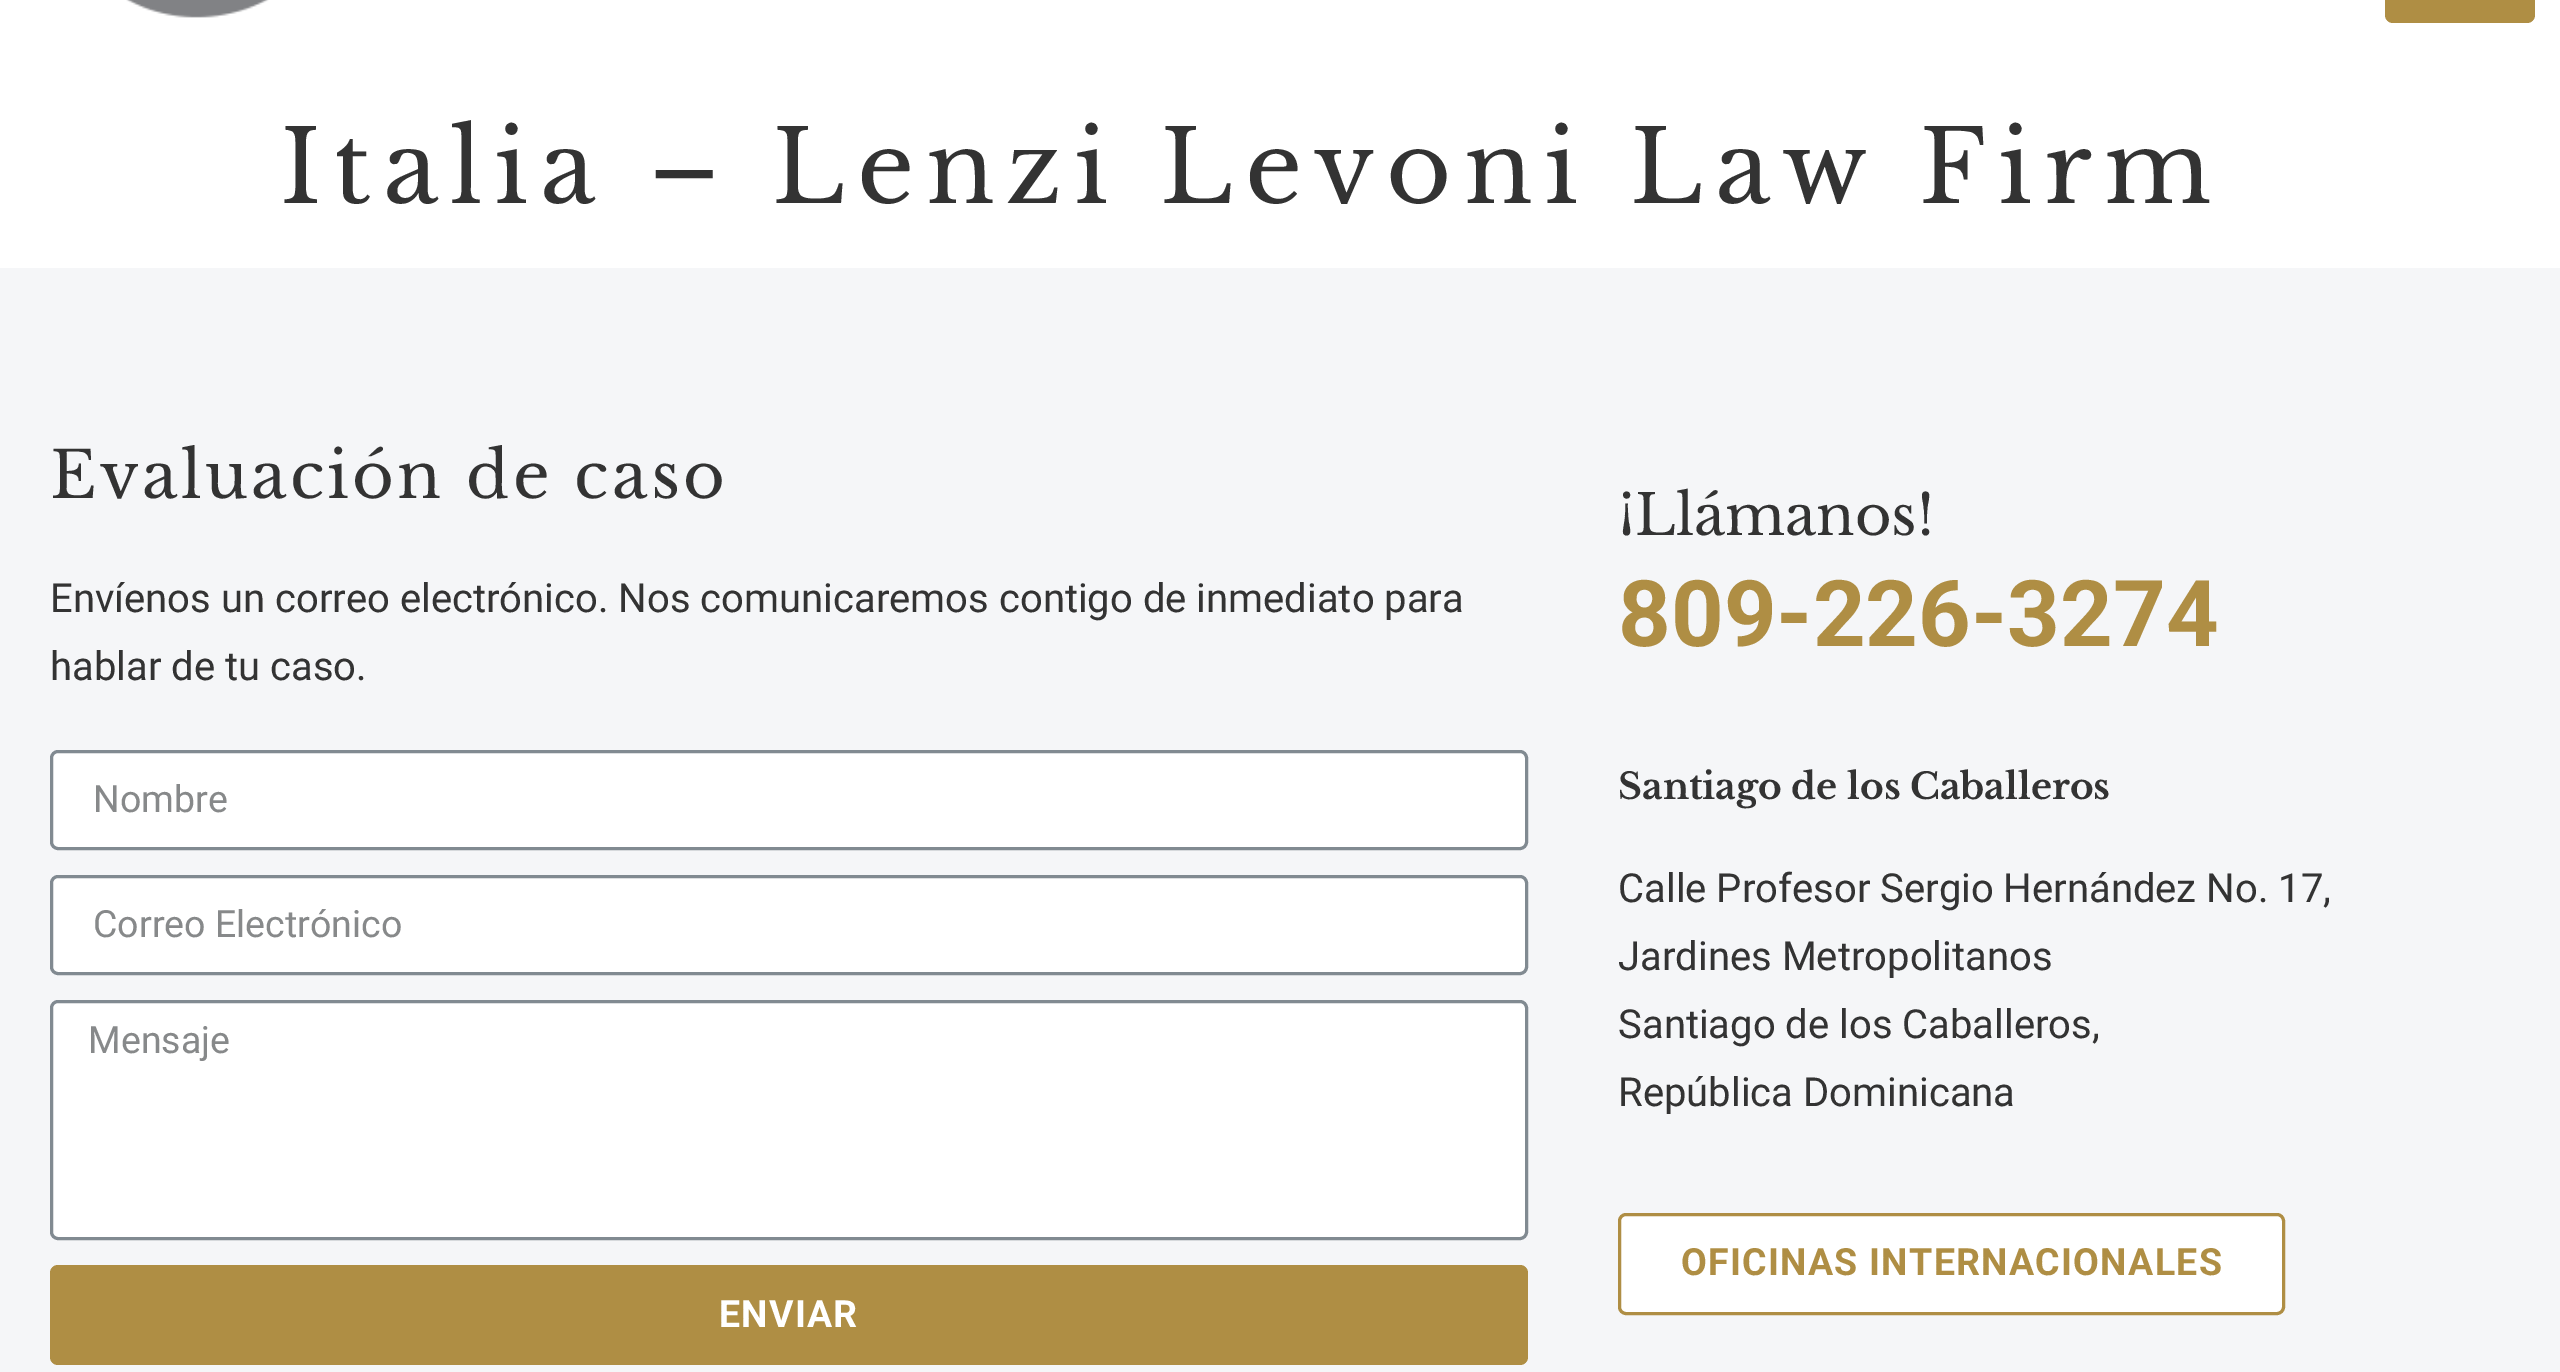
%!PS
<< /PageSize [2560 1372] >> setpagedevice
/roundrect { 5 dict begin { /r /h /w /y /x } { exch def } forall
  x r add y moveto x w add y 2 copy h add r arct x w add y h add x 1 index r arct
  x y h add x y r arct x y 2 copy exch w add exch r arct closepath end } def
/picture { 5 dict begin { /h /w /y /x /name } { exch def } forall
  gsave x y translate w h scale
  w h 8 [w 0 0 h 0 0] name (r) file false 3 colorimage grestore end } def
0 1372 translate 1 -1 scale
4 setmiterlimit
1 setgray
0 0 2560 1372 rectfill
(img1.rgb) 126 0 143 18 picture
0.686 0.557 0.267 setrgbcolor
2385 -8 150 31 8 roundrect fill
/LibreBaskerville-Regular [100 0 0 -100 0 0] selectfont
0.2 setgray
280 203 moveto 11.75 0 (Italia – Lenzi Levoni Law Firm) ashow
0.961 0.965 0.973 setrgbcolor
0 268 2560 1104 rectfill
/LibreBaskerville-Regular [64 0 0 -64 0 0] selectfont
0.2 setgray
50 498 moveto 3.25 0 (Evaluación de caso) ashow
/Roboto-Regular [40 0 0 -40 0 0] selectfont
50 612 moveto (Envíenos un correo electrónico. Nos comunicaremos contigo de inmediato para) show
50 680 moveto (hablar de tu caso.) show
1 setgray
51.5 751.5 1475 97 6.5 roundrect gsave fill grestore
0.506 0.541 0.569 setrgbcolor
3 setlinewidth
stroke
/Roboto-Regular [37.5 0 0 -37.5 0 0] selectfont
0.529 0.537 0.541 setrgbcolor
93 812 moveto (Nombre) show
1 setgray
51.5 876.5 1475 97 6.5 roundrect gsave fill grestore
0.506 0.541 0.569 setrgbcolor
stroke
0.529 0.537 0.541 setrgbcolor
93 937 moveto (Correo Electrónico) show
1 setgray
51.5 1001.5 1475 237 6.5 roundrect gsave fill grestore
0.506 0.541 0.569 setrgbcolor
stroke
0.529 0.537 0.541 setrgbcolor
88 1053 moveto (Mensaje) show
0.686 0.557 0.267 setrgbcolor
50 1265 1478 100 8 roundrect fill
/Roboto-Bold [37.5 0 0 -37.5 0 0] selectfont
1 setgray
719 1327 moveto 1.25 0 (ENVIAR) ashow
/LibreBaskerville-Regular [56 0 0 -56 0 0] selectfont
0.2 setgray
1618 535 moveto (¡Llámanos!) show
/Roboto-Bold [92 0 0 -92 0 0] selectfont
0.686 0.557 0.267 setrgbcolor
1618 646 moveto (809-226-3274) show
/LibreBaskerville-Bold [36 0 0 -36 0 0] selectfont
0.2 setgray
1618 799 moveto (Santiago de los Caballeros) show
/Roboto-Regular [40 0 0 -40 0 0] selectfont
1618 902 moveto (Calle Profesor Sergio Hernández No. 17,) show
1618 970 moveto (Jardines Metropolitanos) show
1618 1038 moveto (Santiago de los Caballeros,) show
1618 1106 moveto (República Dominicana) show
1 setgray
1619.5 1214.5 664 99 6.5 roundrect gsave fill grestore
0.686 0.557 0.267 setrgbcolor
stroke
/Roboto-Bold [37.5 0 0 -37.5 0 0] selectfont
1681 1275 moveto 1.25 0 (OFICINAS INTERNACIONALES) ashow
showpage
